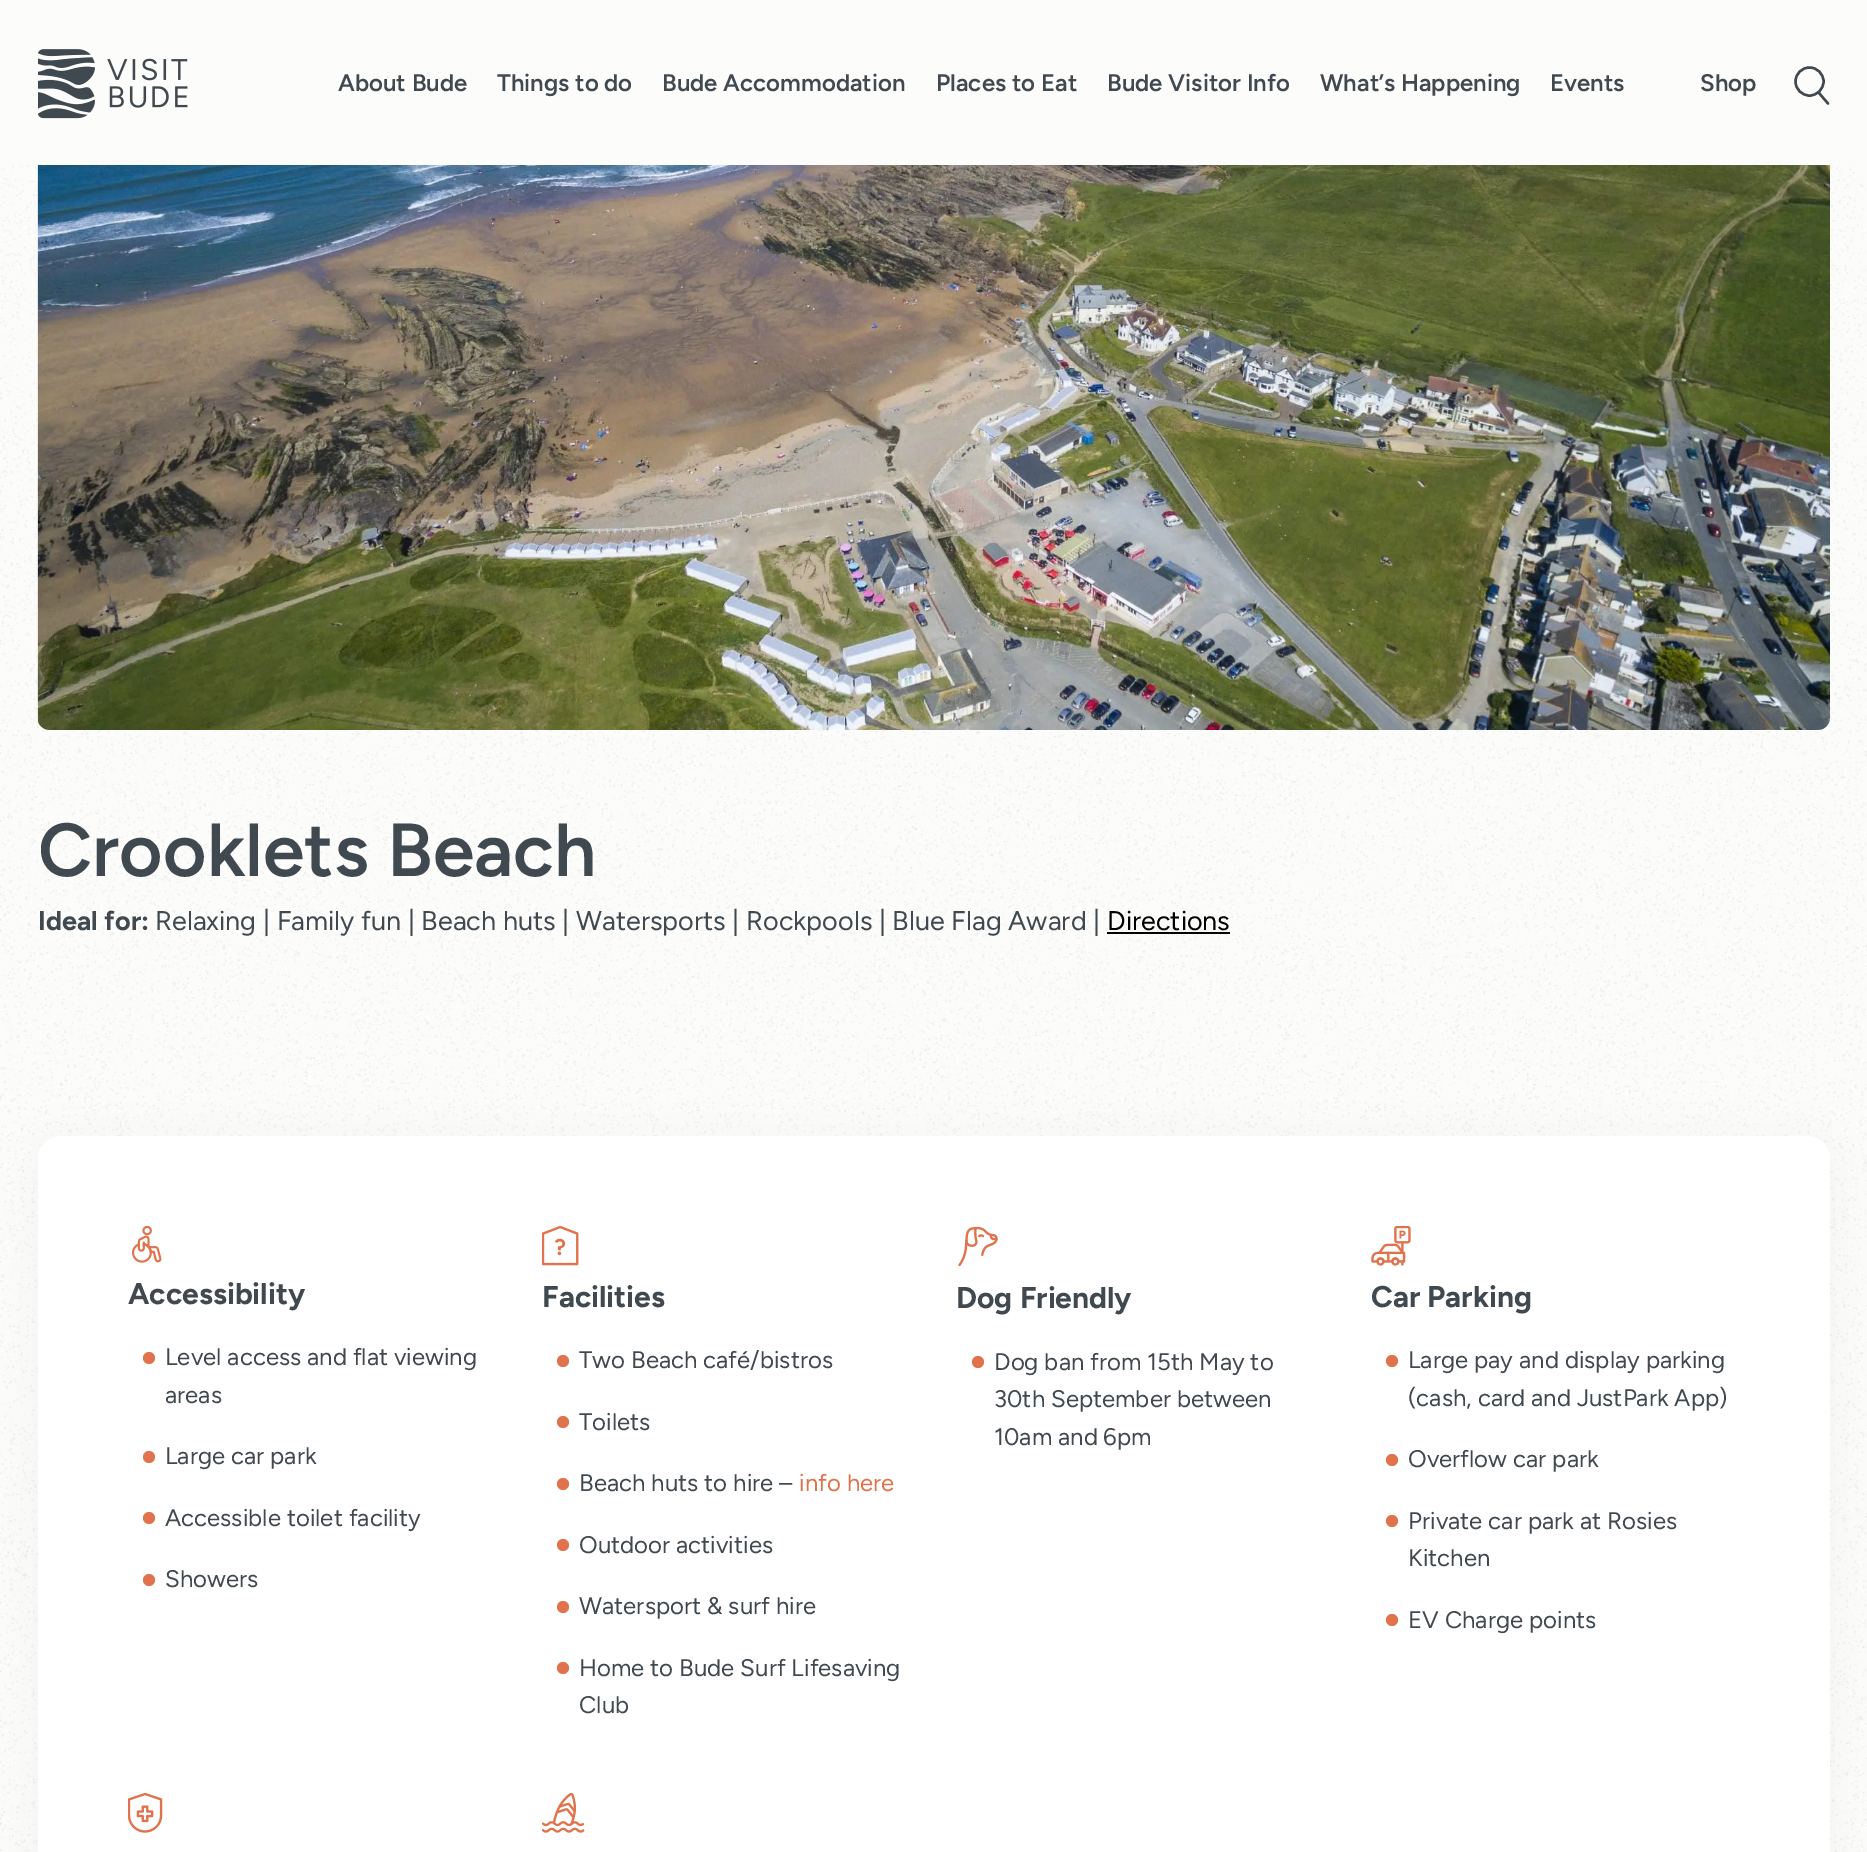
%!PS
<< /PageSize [1867 1852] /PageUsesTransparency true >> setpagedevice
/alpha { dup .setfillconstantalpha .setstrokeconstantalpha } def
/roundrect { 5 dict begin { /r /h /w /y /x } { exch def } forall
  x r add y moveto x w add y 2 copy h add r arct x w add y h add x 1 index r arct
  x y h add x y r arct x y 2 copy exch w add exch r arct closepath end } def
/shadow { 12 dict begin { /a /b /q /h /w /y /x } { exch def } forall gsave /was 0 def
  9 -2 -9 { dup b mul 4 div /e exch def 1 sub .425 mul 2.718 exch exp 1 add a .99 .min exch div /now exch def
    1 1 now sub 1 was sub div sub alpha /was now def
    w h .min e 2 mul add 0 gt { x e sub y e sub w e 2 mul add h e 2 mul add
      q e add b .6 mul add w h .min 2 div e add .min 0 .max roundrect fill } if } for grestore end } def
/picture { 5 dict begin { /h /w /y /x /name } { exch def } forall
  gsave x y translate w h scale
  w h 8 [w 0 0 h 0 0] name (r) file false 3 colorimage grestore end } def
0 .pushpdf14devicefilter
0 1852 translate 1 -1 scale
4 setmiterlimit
0.988 0.988 0.984 setrgbcolor
0 0 1867 1852 rectfill
(img1.rgb) 0 165 1867 1687 picture
(img2.rgb) 38 49 150 70 picture
/Figtree-SemiBold [24 0 0 -24 0 0] selectfont
0.247 0.286 0.31 setrgbcolor
338 91 moveto (About Bude) show
497 91 moveto (Things to do) show
662 91 moveto (Bude Accommodation) show
936 91 moveto (Places to Eat) show
1107 91 moveto (Bude Visitor Info) show
1320 91 moveto (What’s Happening) show
1550 91 moveto (Events) show
1700 91 moveto (Shop) show
2.4 setlinewidth
newpath 1809.5 81.5 14 0 360 arc closepath stroke
1 setlinecap
1 setlinejoin
newpath 1819 93 moveto 1828 103.5 lineto stroke
(img3.rgb) 37 165 1793 565 picture
/Figtree-SemiBold [75 0 0 -75 0 0] selectfont
38 876 moveto (Crooklets Beach) show
/Figtree-Bold [27 0 0 -27 0 0] selectfont
38 930 moveto (Ideal for:) show
/Figtree-Regular [27 0 0 -27 0 0] selectfont
155 930 moveto (Relaxing | Family fun | Beach huts | Watersports | Rockpools | Blue Flag Award |) show
0 setgray
1107 930 moveto (Directions) show
1107 932 123 2 rectfill
0.247 0.286 0.31 setrgbcolor
38 1142 1792 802 23 23 0.06 shadow
1 setgray
38 1136 1792 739 23 roundrect fill
(img4.rgb) 132 1226 30 37 picture
/Figtree-Bold [30 0 0 -30 0 0] selectfont
0.247 0.286 0.31 setrgbcolor
128 1304 moveto (Accessibility) show
0.878 0.451 0.302 setrgbcolor
newpath 149 1358 6 0 360 arc closepath fill
/Figtree-Regular [24 0 0 -24 0 0] selectfont
0.247 0.286 0.31 setrgbcolor
165 1365 moveto (Level access and flat viewing) show
165 1403 moveto (areas) show
0.878 0.451 0.302 setrgbcolor
newpath 149 1457 6 0 360 arc closepath fill
0.247 0.286 0.31 setrgbcolor
165 1464 moveto (Large car park) show
0.878 0.451 0.302 setrgbcolor
newpath 149 1518 6 0 360 arc closepath fill
0.247 0.286 0.31 setrgbcolor
165 1526 moveto (Accessible toilet facility) show
0.878 0.451 0.302 setrgbcolor
newpath 149 1580 6 0 360 arc closepath fill
0.247 0.286 0.31 setrgbcolor
165 1587 moveto (Showers) show
(img5.rgb) 542 1226 37 40 picture
/Figtree-Bold [30 0 0 -30 0 0] selectfont
542 1307 moveto (Facilities) show
0.878 0.451 0.302 setrgbcolor
newpath 563 1361 6 0 360 arc closepath fill
/Figtree-Regular [24 0 0 -24 0 0] selectfont
0.247 0.286 0.31 setrgbcolor
579 1368 moveto (Two Beach café/bistros) show
0.878 0.451 0.302 setrgbcolor
newpath 563 1422 6 0 360 arc closepath fill
0.247 0.286 0.31 setrgbcolor
579 1430 moveto (Toilets) show
0.878 0.451 0.302 setrgbcolor
newpath 563 1484 6 0 360 arc closepath fill
0.247 0.286 0.31 setrgbcolor
579 1491 moveto (Beach huts to hire –) show
0.878 0.451 0.302 setrgbcolor
799 1491 moveto (info here) show
newpath 563 1545 6 0 360 arc closepath fill
0.247 0.286 0.31 setrgbcolor
579 1553 moveto (Outdoor activities) show
0.878 0.451 0.302 setrgbcolor
newpath 563 1607 6 0 360 arc closepath fill
0.247 0.286 0.31 setrgbcolor
579 1614 moveto (Watersport & surf hire) show
0.878 0.451 0.302 setrgbcolor
newpath 563 1668 6 0 360 arc closepath fill
0.247 0.286 0.31 setrgbcolor
579 1676 moveto (Home to Bude Surf Lifesaving) show
579 1713 moveto (Club) show
(img6.rgb) 958 1226 40 41 picture
/Figtree-Bold [30 0 0 -30 0 0] selectfont
956 1308 moveto (Dog Friendly) show
0.878 0.451 0.302 setrgbcolor
newpath 978 1362 6 0 360 arc closepath fill
/Figtree-Regular [24 0 0 -24 0 0] selectfont
0.247 0.286 0.31 setrgbcolor
994 1370 moveto (Dog ban from 15th May to) show
994 1407 moveto (30th September between) show
994 1445 moveto (10am and 6pm) show
(img7.rgb) 1371 1226 40 40 picture
/Figtree-Bold [30 0 0 -30 0 0] selectfont
1371 1307 moveto (Car Parking) show
0.878 0.451 0.302 setrgbcolor
newpath 1392 1361 6 0 360 arc closepath fill
/Figtree-Regular [24 0 0 -24 0 0] selectfont
0.247 0.286 0.31 setrgbcolor
1408 1368 moveto (Large pay and display parking) show
1408 1406 moveto (\(cash, card and JustPark App\)) show
0.878 0.451 0.302 setrgbcolor
newpath 1392 1460 6 0 360 arc closepath fill
0.247 0.286 0.31 setrgbcolor
1408 1467 moveto (Overflow car park) show
0.878 0.451 0.302 setrgbcolor
newpath 1392 1521 6 0 360 arc closepath fill
0.247 0.286 0.31 setrgbcolor
1408 1529 moveto (Private car park at Rosies) show
1408 1566 moveto (Kitchen) show
0.878 0.451 0.302 setrgbcolor
newpath 1392 1620 6 0 360 arc closepath fill
0.247 0.286 0.31 setrgbcolor
1408 1628 moveto (EV Charge points) show
(img8.rgb) 128 1793 35 40 picture
(img9.rgb) 542 1793 43 40 picture
.poppdf14devicefilter showpage
